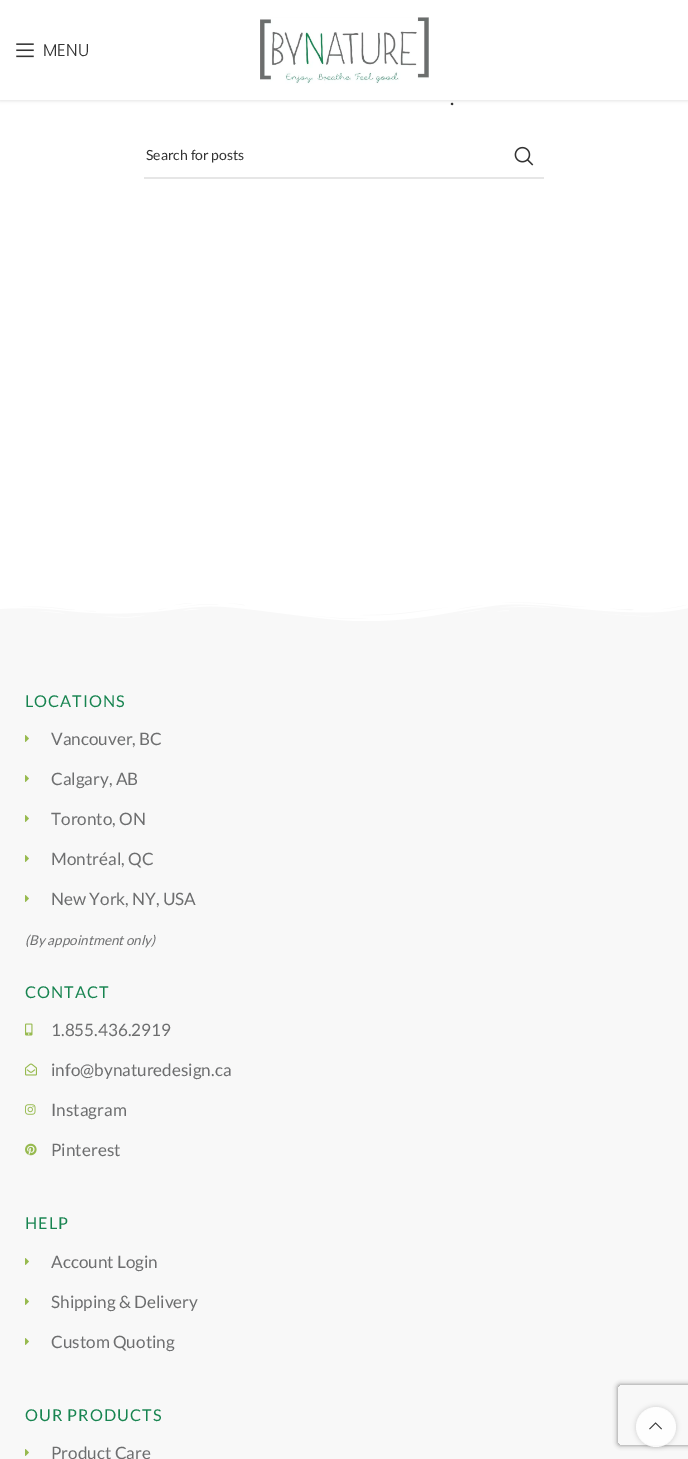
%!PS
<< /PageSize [688 1459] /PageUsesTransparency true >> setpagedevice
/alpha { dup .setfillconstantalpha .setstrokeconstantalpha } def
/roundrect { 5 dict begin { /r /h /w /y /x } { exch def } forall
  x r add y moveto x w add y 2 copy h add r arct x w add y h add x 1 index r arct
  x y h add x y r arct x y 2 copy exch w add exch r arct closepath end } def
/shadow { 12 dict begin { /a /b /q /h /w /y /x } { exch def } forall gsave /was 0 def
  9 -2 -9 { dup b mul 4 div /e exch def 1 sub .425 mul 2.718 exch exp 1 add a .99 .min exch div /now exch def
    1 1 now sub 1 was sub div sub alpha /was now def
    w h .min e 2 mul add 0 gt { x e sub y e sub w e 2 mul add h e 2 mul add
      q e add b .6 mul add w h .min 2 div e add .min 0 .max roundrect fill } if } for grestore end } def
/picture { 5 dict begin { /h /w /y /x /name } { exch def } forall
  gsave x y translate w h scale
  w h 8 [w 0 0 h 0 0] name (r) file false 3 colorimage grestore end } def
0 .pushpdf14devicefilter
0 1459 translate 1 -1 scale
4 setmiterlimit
1 setgray
0 0 688 1459 rectfill
0 setgray
0 1 688 100 0 1.5 0.1 shadow
1 setgray
0 0 688 100 rectfill
(img1.rgb) 16 43 18 15 picture
/Poppins-Light [17 0 0 -17 0 0] selectfont
0.2 setgray
43 56 moveto (MENU) show
(img2.rgb) 260 17 169 67 picture
/Lato-Regular [20 0 0 -20 0 0] selectfont
450 105 moveto (.) show
0.902 setgray
144 177 400 2 rectfill
/Lato-Regular [14 0 0 -14 0 0] selectfont
0.2 setgray
146 160 moveto (Search for posts) show
(img3.rgb) 514 146 20 20 picture
1 setgray
newpath 515 162 moveto 511.5 158.5 511.5 153.5 515 150 curveto stroke
0.973 setgray
0 602 688 857 rectfill
(img4.rgb) 0 600 688 21 picture
/Lato-Regular [16.25 0 0 -16.25 0 0] selectfont
0.09 0.518 0.314 setrgbcolor
25 707 moveto 1 0 (LOCATIONS) ashow
(img5.rgb) 25 735 4 7 picture
/Lato-Regular [17.1 0 0 -17.1 0 0] selectfont
0.427 0.431 0.435 setrgbcolor
51 745 moveto (Vancouver, BC) show
(img5.rgb) 25 775 4 7 picture
51 785 moveto (Calgary, AB) show
(img5.rgb) 25 815 4 7 picture
51 825 moveto (Toronto, ON) show
(img5.rgb) 25 855 4 7 picture
51 865 moveto (Montréal, QC) show
(img5.rgb) 25 895 4 7 picture
51 905 moveto (New York, NY, USA) show
/Lato-Italic [13.5 0 0 -13.5 0 0] selectfont
25 945 moveto (\(By appointment only\)) show
/Lato-Regular [16.25 0 0 -16.25 0 0] selectfont
0.09 0.518 0.314 setrgbcolor
25 998 moveto 1 0 (CONTACT) ashow
(img6.rgb) 25 1023 8 13 picture
/Lato-Regular [17.1 0 0 -17.1 0 0] selectfont
0.427 0.431 0.435 setrgbcolor
51 1036 moveto (1.855.436.2919) show
(img7.rgb) 25 1063 12 13 picture
51 1076 moveto (info@bynaturedesign.ca) show
(img8.rgb) 25 1104 11 11 picture
51 1116 moveto (Instagram) show
(img9.rgb) 25 1143 12 13 picture
51 1156 moveto (Pinterest) show
/Lato-Regular [16.25 0 0 -16.25 0 0] selectfont
0.09 0.518 0.314 setrgbcolor
25 1229 moveto 1 0 (HELP) ashow
(img5.rgb) 25 1258 4 7 picture
/Lato-Regular [17.1 0 0 -17.1 0 0] selectfont
0.427 0.431 0.435 setrgbcolor
51 1268 moveto (Account Login) show
(img5.rgb) 25 1298 4 7 picture
51 1308 moveto (Shipping & Delivery) show
(img5.rgb) 25 1338 4 7 picture
51 1348 moveto (Custom Quoting) show
/Lato-Regular [16.25 0 0 -16.25 0 0] selectfont
0.09 0.518 0.314 setrgbcolor
25 1421 moveto 1 0 (OUR PRODUCTS) ashow
(img5.rgb) 25 1449 4 7 picture
/Lato-Regular [17.1 0 0 -17.1 0 0] selectfont
0.427 0.431 0.435 setrgbcolor
51 1459 moveto (Product Care) show
gsave
newpath 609 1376 moveto 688 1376 lineto 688 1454 lineto 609 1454 lineto closepath 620 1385 moveto 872 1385 lineto 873 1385 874 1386 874 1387 curveto 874 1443 lineto 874 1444 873 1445 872 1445 curveto 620 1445 lineto 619 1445 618 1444 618 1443 curveto 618 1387 lineto 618 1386 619 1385 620 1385 curveto closepath eoclip newpath
0.502 setgray
618 1385 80 60 2 2.5 1 shadow
grestore
gsave
newpath 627 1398 moveto 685 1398 lineto 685 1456 lineto 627 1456 lineto closepath 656 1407 moveto 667 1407 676 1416 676 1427 curveto 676 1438 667 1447 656 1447 curveto 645 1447 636 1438 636 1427 curveto 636 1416 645 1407 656 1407 curveto closepath eoclip newpath
0 setgray
636 1407 40 40 20 2.5 0.17 shadow
grestore
0.9 alpha
1 setgray
newpath 656 1427 20 0 360 arc closepath fill
1 alpha
(img10.rgb) 649 1422 13 8 picture
.poppdf14devicefilter showpage
